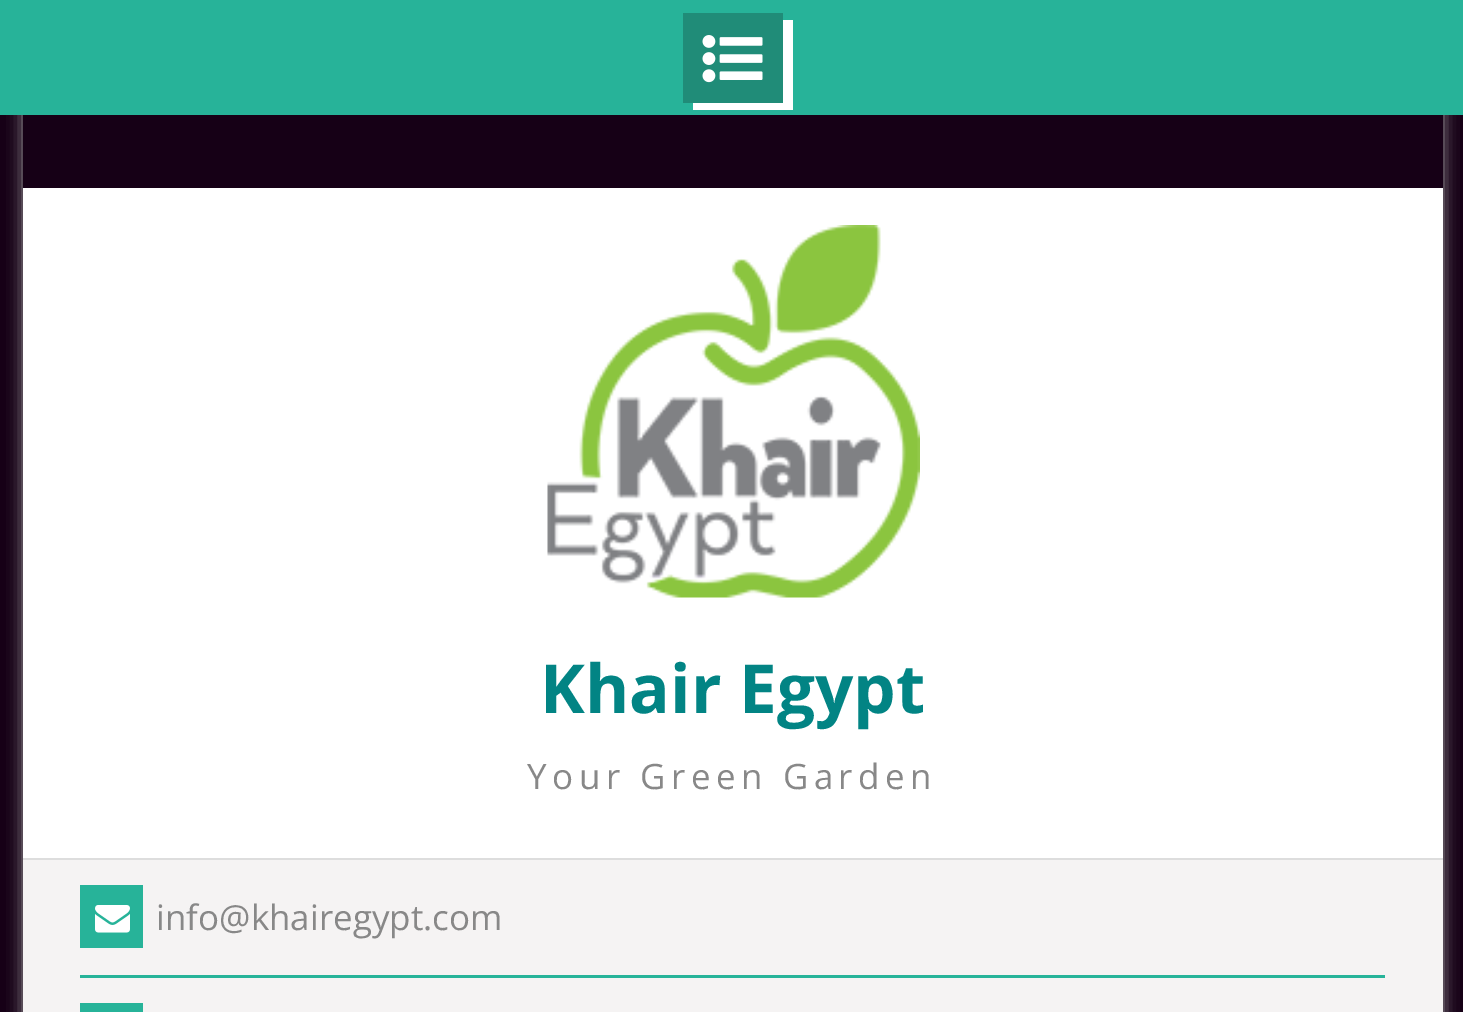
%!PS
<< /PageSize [1463 1012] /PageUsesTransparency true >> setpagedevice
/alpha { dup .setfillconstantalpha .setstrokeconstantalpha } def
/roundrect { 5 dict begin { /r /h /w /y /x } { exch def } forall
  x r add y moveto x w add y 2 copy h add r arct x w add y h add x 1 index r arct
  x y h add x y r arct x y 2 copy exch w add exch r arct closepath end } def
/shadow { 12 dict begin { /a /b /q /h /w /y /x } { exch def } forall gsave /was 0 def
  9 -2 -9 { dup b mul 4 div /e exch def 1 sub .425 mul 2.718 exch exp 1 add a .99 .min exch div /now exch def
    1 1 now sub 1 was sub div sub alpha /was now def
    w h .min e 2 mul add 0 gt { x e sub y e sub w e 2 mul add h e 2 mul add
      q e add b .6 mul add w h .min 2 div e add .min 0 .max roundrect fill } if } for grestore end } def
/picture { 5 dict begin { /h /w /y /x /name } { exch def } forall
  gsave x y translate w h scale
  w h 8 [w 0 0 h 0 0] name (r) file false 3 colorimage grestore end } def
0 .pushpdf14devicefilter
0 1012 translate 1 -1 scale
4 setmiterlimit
0.086 0 0.086 setrgbcolor
0 0 1463 1012 rectfill
gsave
newpath 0 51 moveto 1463 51 lineto 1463 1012 lineto 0 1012 lineto closepath 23 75 moveto 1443 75 lineto 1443 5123 lineto 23 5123 lineto closepath eoclip newpath
0.6 setgray
23 75 1420 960 0 7.5 1 shadow
grestore
0.153 0.702 0.6 setrgbcolor
0 0 1463 115 rectfill
1 setgray
newpath 693 102 moveto 693 110 lineto 793 110 lineto 793 20 lineto 782 20 lineto 782 102 lineto closepath fill
0.125 0.549 0.471 setrgbcolor
683 13 100 90 rectfill
(img1.rgb) 702 35 61 48 picture
1 setgray
23 188 1420 670 rectfill
0.867 setgray
23 858 1420 2 rectfill
(img2.rgb) 547 225 373 373 picture
/OpenSans-Bold [67.5 0 0 -67.5 0 0] selectfont
0.008 0.518 0.518 setrgbcolor
540 713 moveto (Khair Egypt) show
/OpenSans-Regular [35 0 0 -35 0 0] selectfont
0.533 setgray
527 789 moveto 5.5 0 (Your Green Garden) ashow
0.961 0.953 0.953 setrgbcolor
23 860 1420 152 rectfill
0.153 0.702 0.6 setrgbcolor
80 975 1305 3 rectfill
80 885 63 63 rectfill
(img3.rgb) 95 905 35 28 picture
0.533 setgray
156 930 moveto (info@khairegypt.com) show
0.153 0.702 0.6 setrgbcolor
80 1003 63 9 rectfill
.poppdf14devicefilter showpage
